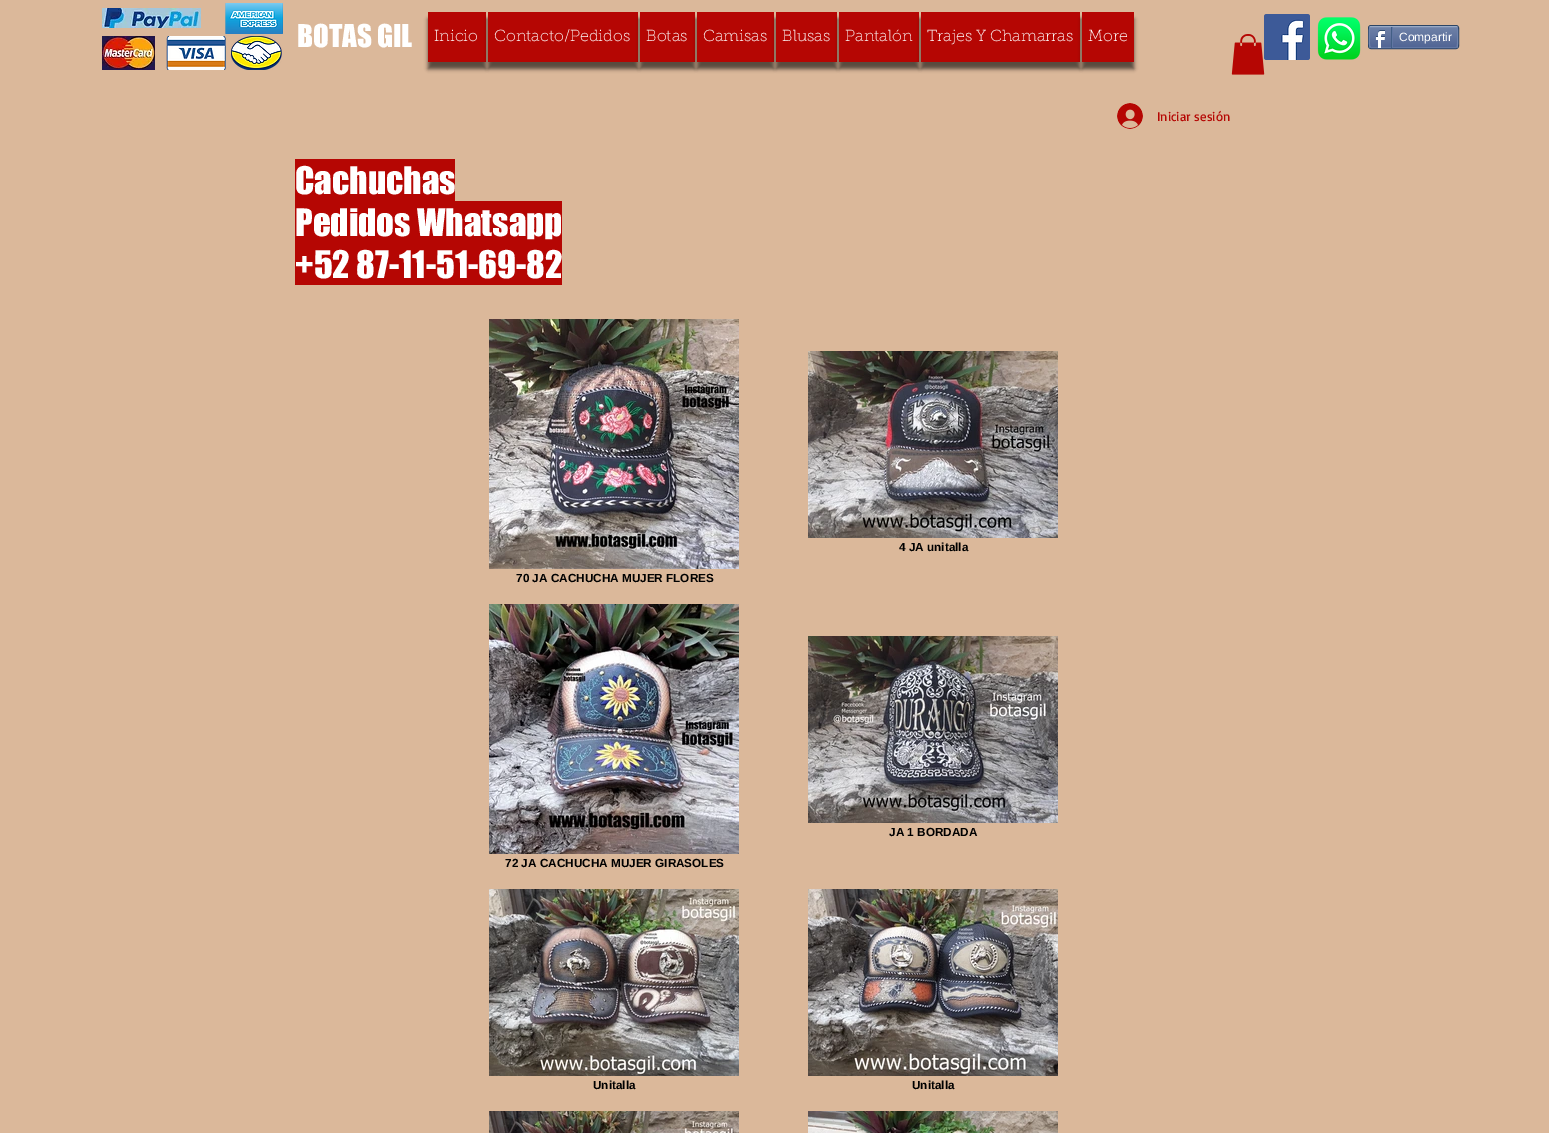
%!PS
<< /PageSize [1549 1133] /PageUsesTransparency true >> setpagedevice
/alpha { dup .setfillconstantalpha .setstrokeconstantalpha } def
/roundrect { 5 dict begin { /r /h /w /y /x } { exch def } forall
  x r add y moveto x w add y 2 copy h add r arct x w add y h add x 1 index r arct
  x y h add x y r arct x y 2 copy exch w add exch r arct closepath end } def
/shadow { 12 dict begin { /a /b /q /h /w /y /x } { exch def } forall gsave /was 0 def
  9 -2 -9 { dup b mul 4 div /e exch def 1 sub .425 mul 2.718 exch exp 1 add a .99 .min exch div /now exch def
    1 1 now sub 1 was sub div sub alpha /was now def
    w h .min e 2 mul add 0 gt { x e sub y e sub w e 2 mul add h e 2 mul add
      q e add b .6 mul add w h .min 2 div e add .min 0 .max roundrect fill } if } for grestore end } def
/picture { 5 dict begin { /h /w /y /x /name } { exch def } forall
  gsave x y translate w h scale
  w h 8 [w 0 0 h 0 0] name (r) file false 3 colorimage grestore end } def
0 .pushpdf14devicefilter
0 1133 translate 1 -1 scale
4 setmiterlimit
0.859 0.722 0.604 setrgbcolor
0 0 1549 1133 rectfill
(img1.rgb) 102 8 99 20 picture
(img2.rgb) 225 3 58 31 picture
/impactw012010-Regular [29 0 0 -29 0 0] selectfont
1 setgray
297 47 moveto (BOTAS GIL) show
0 setgray
428 19 58 50 0 2 0.6 shadow
0.71 0.024 0.012 setrgbcolor
428 12 58 50 rectfill
/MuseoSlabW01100-Thin [16 0 0 -16 0 0] selectfont
1 setgray
434 41 moveto (Inicio) show
0 setgray
488 19 150 50 0 2 0.6 shadow
0.71 0.024 0.012 setrgbcolor
488 12 150 50 rectfill
1 setgray
494 41 moveto (Contacto/Pedidos) show
0 setgray
640 19 55 50 0 2 0.6 shadow
0.71 0.024 0.012 setrgbcolor
640 12 55 50 rectfill
1 setgray
646 41 moveto (Botas) show
0 setgray
697 19 77 50 0 2 0.6 shadow
0.71 0.024 0.012 setrgbcolor
697 12 77 50 rectfill
1 setgray
703 41 moveto (Camisas) show
0 setgray
776 19 61 50 0 2 0.6 shadow
0.71 0.024 0.012 setrgbcolor
776 12 61 50 rectfill
1 setgray
782 41 moveto (Blusas) show
0 setgray
839 19 80 50 0 2 0.6 shadow
0.71 0.024 0.012 setrgbcolor
839 12 80 50 rectfill
1 setgray
845 41 moveto (Pantalón) show
0 setgray
921 19 159 50 0 2 0.6 shadow
0.71 0.024 0.012 setrgbcolor
921 12 159 50 rectfill
1 setgray
927 41 moveto (Trajes Y Chamarras) show
0 setgray
1082 19 52 50 0 2 0.6 shadow
0.71 0.024 0.012 setrgbcolor
1082 12 52 50 rectfill
1 setgray
1088 41 moveto (More) show
(img4.rgb) 1264 14 46 46 picture
(img3.rgb) 1231 34 34 41 picture
(img5.rgb) 1317 17 44 43 picture
0.176 0.271 0.396 setrgbcolor
1368.5 25.5 90 23 2.5 roundrect stroke
(img6.rgb) 1369 27 89 21 picture
0.604 0.671 0.776 setrgbcolor
newpath 1370 27 moveto 1371 26.5 lineto 1456 26.5 lineto 1457 27 lineto stroke
0.435 0.514 0.678 setrgbcolor
newpath 1457 27 moveto 1458 27.5 1458 46.5 1457 47 curveto stroke
0.38 0.463 0.639 setrgbcolor
newpath 1457 47 moveto 1456 47.5 lineto 1371 47.5 lineto 1370 47 lineto stroke
0.435 0.514 0.678 setrgbcolor
newpath 1370 47 moveto 1369 46.5 1369 27.5 1370 27 curveto stroke
(img7.rgb) 1375 30 10 18 picture
0.259 0.369 0.522 setrgbcolor
1391 27 1 21 rectfill
/LiberationSans-Regular [12 0 0 -12 0 0] selectfont
1 setgray
1399 41 moveto (Compartir) show
0.38 0.463 0.639 setrgbcolor
1392 27 1 20 rectfill
(img8.rgb) 102 36 53 34 picture
(img9.rgb) 166 36 60 34 picture
(img10.rgb) 231 36 51 34 picture
(img11.rgb) 1117 103 26 26 picture
/Basic-Regular [13 0 0 -13 0 0] selectfont
0.71 0.024 0.012 setrgbcolor
1157 121 moveto (Iniciar sesión) show
295 159 160 42 rectfill
/impactw012010-Regular [35 0 0 -35 0 0] selectfont
1 setgray
295 194 moveto (Cachuchas) show
0.71 0.024 0.012 setrgbcolor
295 201 267 84 rectfill
1 setgray
295 236 moveto (Pedidos Whatsapp) show
295 278 moveto (+52 87-11-51-69-82) show
(img12.rgb) 808 351 250 187 picture
/LiberationSans-Bold [11.75 0 0 -11.75 0 0] selectfont
0 setgray
899 551 moveto (4 JA unitalla) show
(img13.rgb) 489 319 250 250 picture
516 582 moveto (70 JA CACHUCHA MUJER FLORES) show
(img14.rgb) 808 636 250 187 picture
889 836 moveto (JA 1 BORDADA) show
(img15.rgb) 489 604 250 250 picture
505 867 moveto (72 JA CACHUCHA MUJER GIRASOLES) show
(img16.rgb) 489 889 250 187 picture
593 1089 moveto (Unitalla) show
(img17.rgb) 808 889 250 187 picture
912 1089 moveto (Unitalla) show
(img18.rgb) 489 1111 250 22 picture
(img19.rgb) 808 1111 250 22 picture
.poppdf14devicefilter showpage
